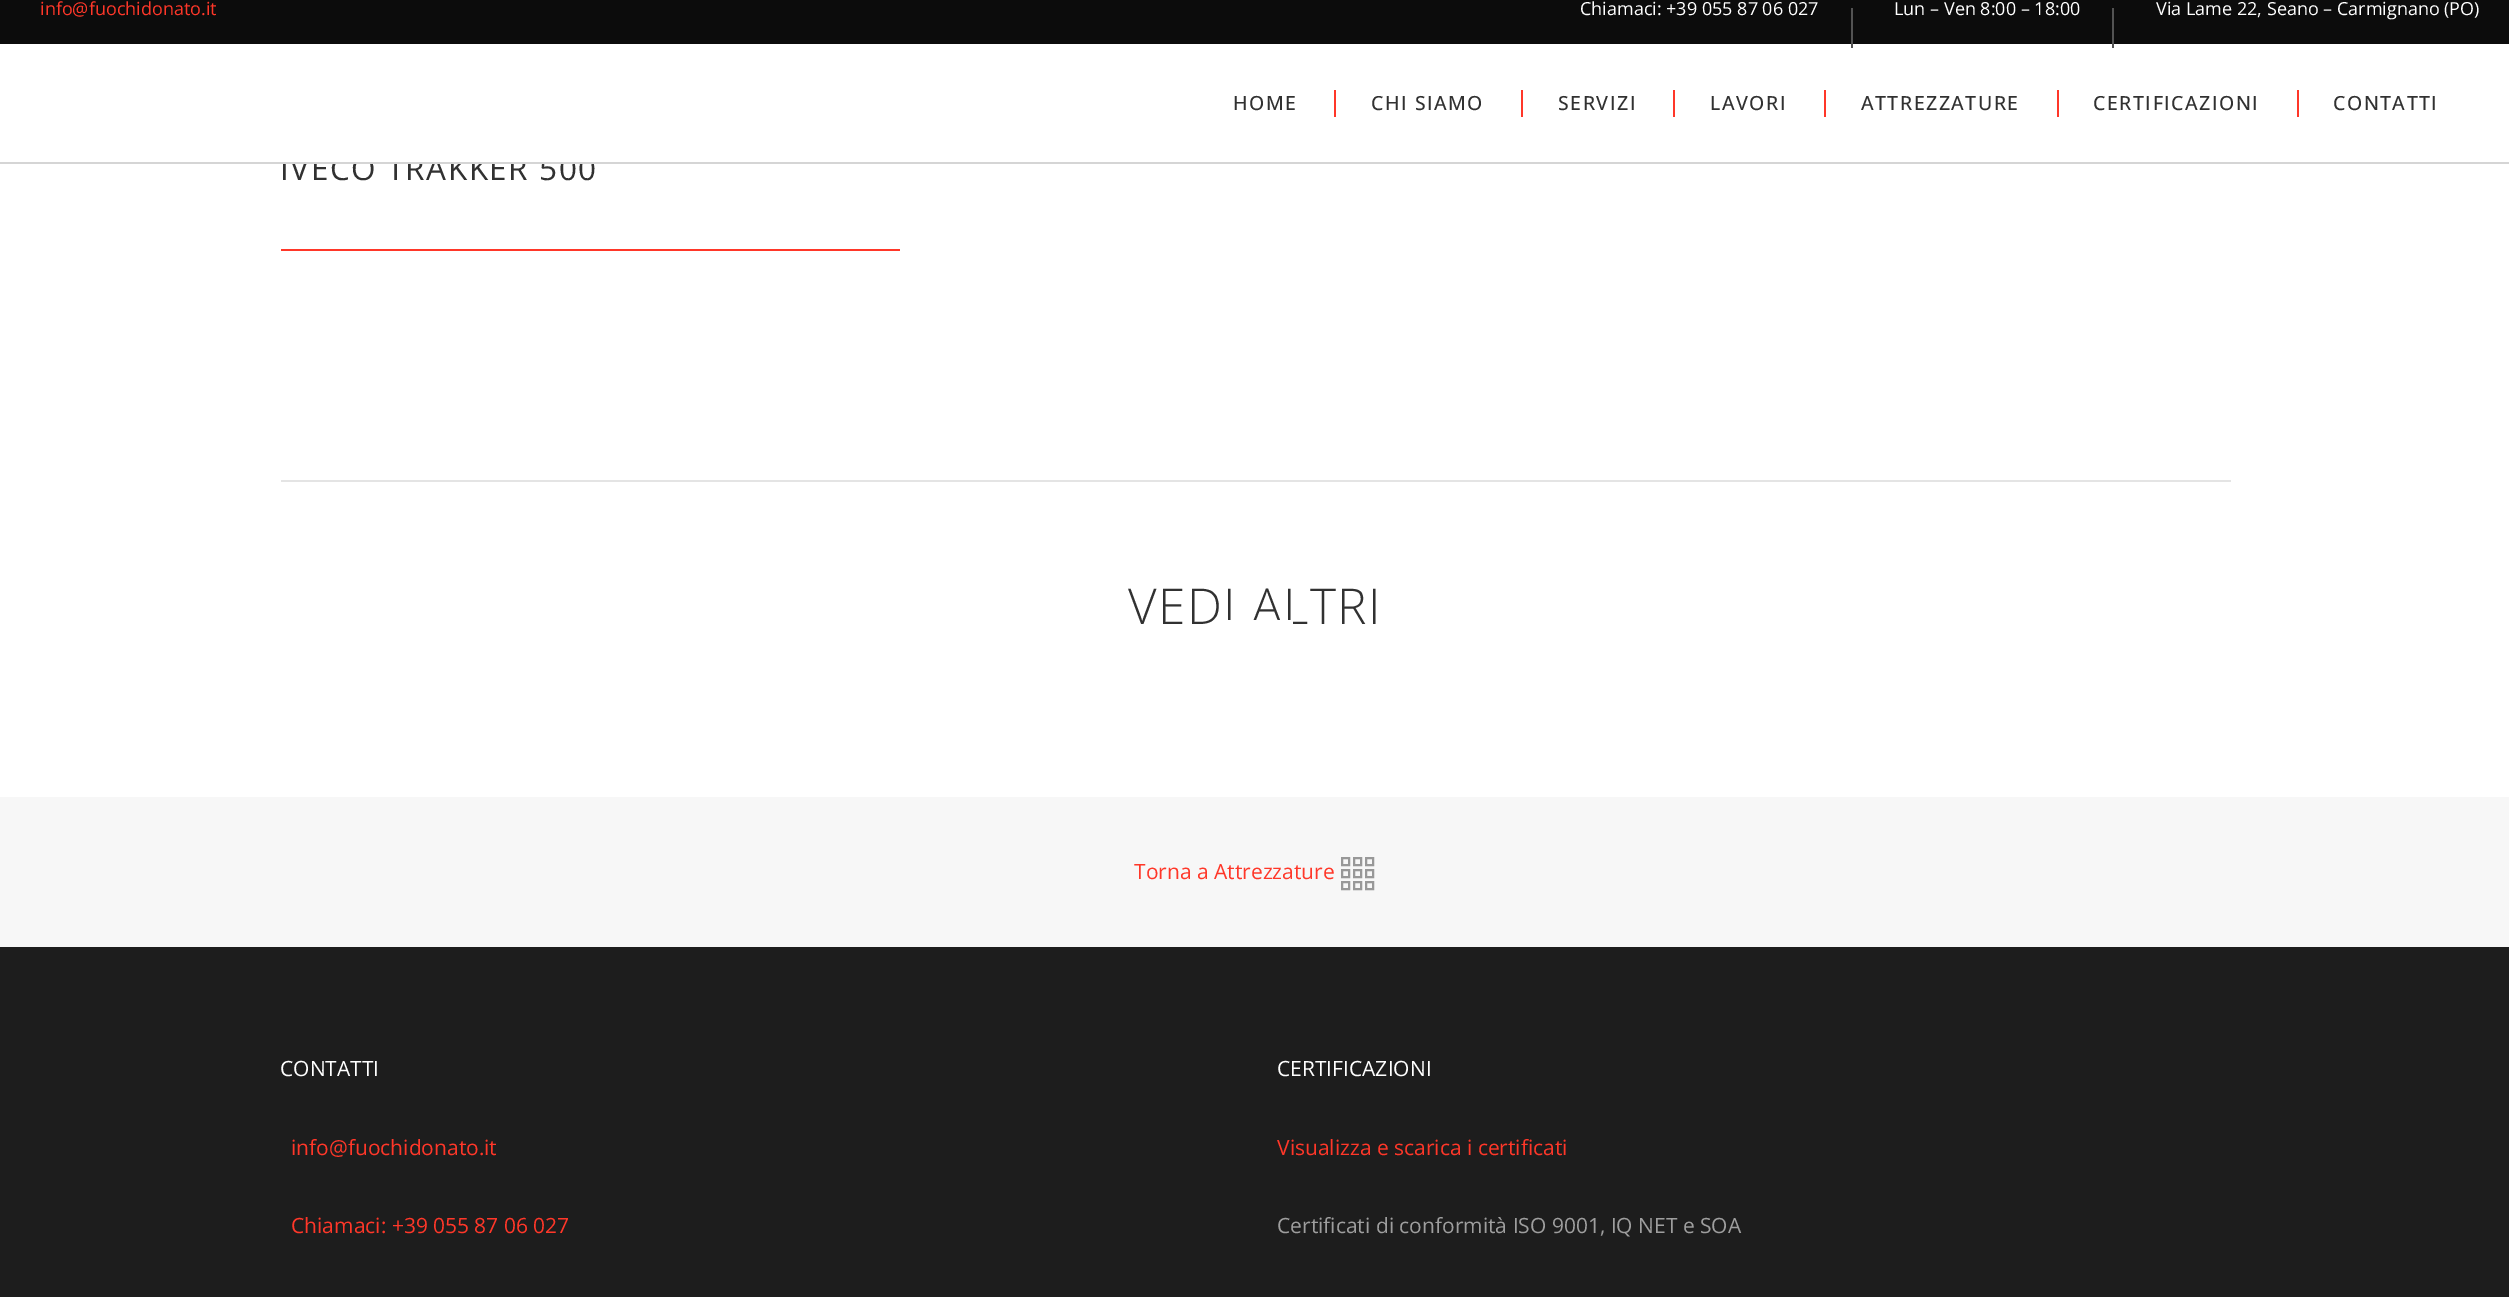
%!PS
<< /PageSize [2509 1297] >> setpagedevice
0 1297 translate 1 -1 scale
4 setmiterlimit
1 setgray
0 0 2509 1297 rectfill
0.047 setgray
0 0 2509 44 rectfill
/OpenSans-Regular [18 0 0 -18 0 0] selectfont
1 0.216 0.161 setrgbcolor
40 15 moveto (info@fuochidonato.it) show
1 setgray
1580 15 moveto (Chiamaci: +39 055 87 06 027) show
0.325 setgray
1851 8 2 40 rectfill
1 setgray
1894 15 moveto (Lun – Ven 8:00 – 18:00) show
0.325 setgray
2112 8 2 40 rectfill
1 setgray
2156 15 moveto (Via Lame 22, Seano – Carmignano \(PO\)) show
/OpenSans-Regular [31.5 0 0 -31.5 0 0] selectfont
0.192 setgray
280 180 moveto 1.5 0 (IVECO TRAKKER 500) ashow
1 setgray
282 157 312 5 rectfill
0.835 setgray
0 162 2509 2 rectfill
/OpenSans-Medium [19.5 0 0 -19.5 0 0] selectfont
0.192 setgray
1233 110 moveto 1.5 0 (HOME) ashow
1 0.216 0.161 setrgbcolor
1334 90 2 27 rectfill
0.192 setgray
1371 110 moveto 1.5 0 (CHI SIAMO) ashow
1 0.216 0.161 setrgbcolor
1521 90 2 27 rectfill
0.192 setgray
1558 110 moveto 1.5 0 (SERVIZI) ashow
1 0.216 0.161 setrgbcolor
1673 90 2 27 rectfill
0.192 setgray
1710 110 moveto 1.5 0 (LAVORI) ashow
1 0.216 0.161 setrgbcolor
1824 90 2 27 rectfill
0.192 setgray
1861 110 moveto 1.5 0 (ATTREZZATURE) ashow
1 0.216 0.161 setrgbcolor
2057 90 2 27 rectfill
0.192 setgray
2093 110 moveto 1.5 0 (CERTIFICAZIONI) ashow
1 0.216 0.161 setrgbcolor
2297 90 2 27 rectfill
0.192 setgray
2333 110 moveto 1.5 0 (CONTATTI) ashow
1 0.216 0.161 setrgbcolor
281 249 619 2 rectfill
0.894 setgray
281 480 1950 2 rectfill
/OpenSans-Light [49.5 0 0 -49.5 0 0] selectfont
0.192 setgray
1128 624 moveto 1.5 0 (VEDI ALTRI) ashow
0.969 setgray
0 797 2509 150 rectfill
/OpenSans-Regular [21 0 0 -21 0 0] selectfont
1 0.216 0.161 setrgbcolor
1134 879 moveto (Torna a Attrezzature) show
0.596 setgray
2 setlinewidth
1342 858 7 7 rectstroke
1354 858 7 7 rectstroke
1366 858 7 7 rectstroke
1342 870 7 7 rectstroke
1354 870 7 7 rectstroke
1366 870 7 7 rectstroke
1342 882 7 7 rectstroke
1354 882 7 7 rectstroke
1366 882 7 7 rectstroke
0.114 setgray
0 947 2509 350 rectfill
1 setgray
280 1076 moveto (CONTATTI) show
1 0.216 0.161 setrgbcolor
291 1155 moveto (info@fuochidonato.it) show
291 1233 moveto (Chiamaci: +39 055 87 06 027) show
1 setgray
1277 1076 moveto (CERTIFICAZIONI) show
1 0.216 0.161 setrgbcolor
1277 1155 moveto (Visualizza e scarica i certificati) show
0.62 setgray
1277 1233 moveto (Certificati di conformità ISO 9001, IQ NET e SOA) show
1 setgray
1228 620 65 4 rectfill
showpage
